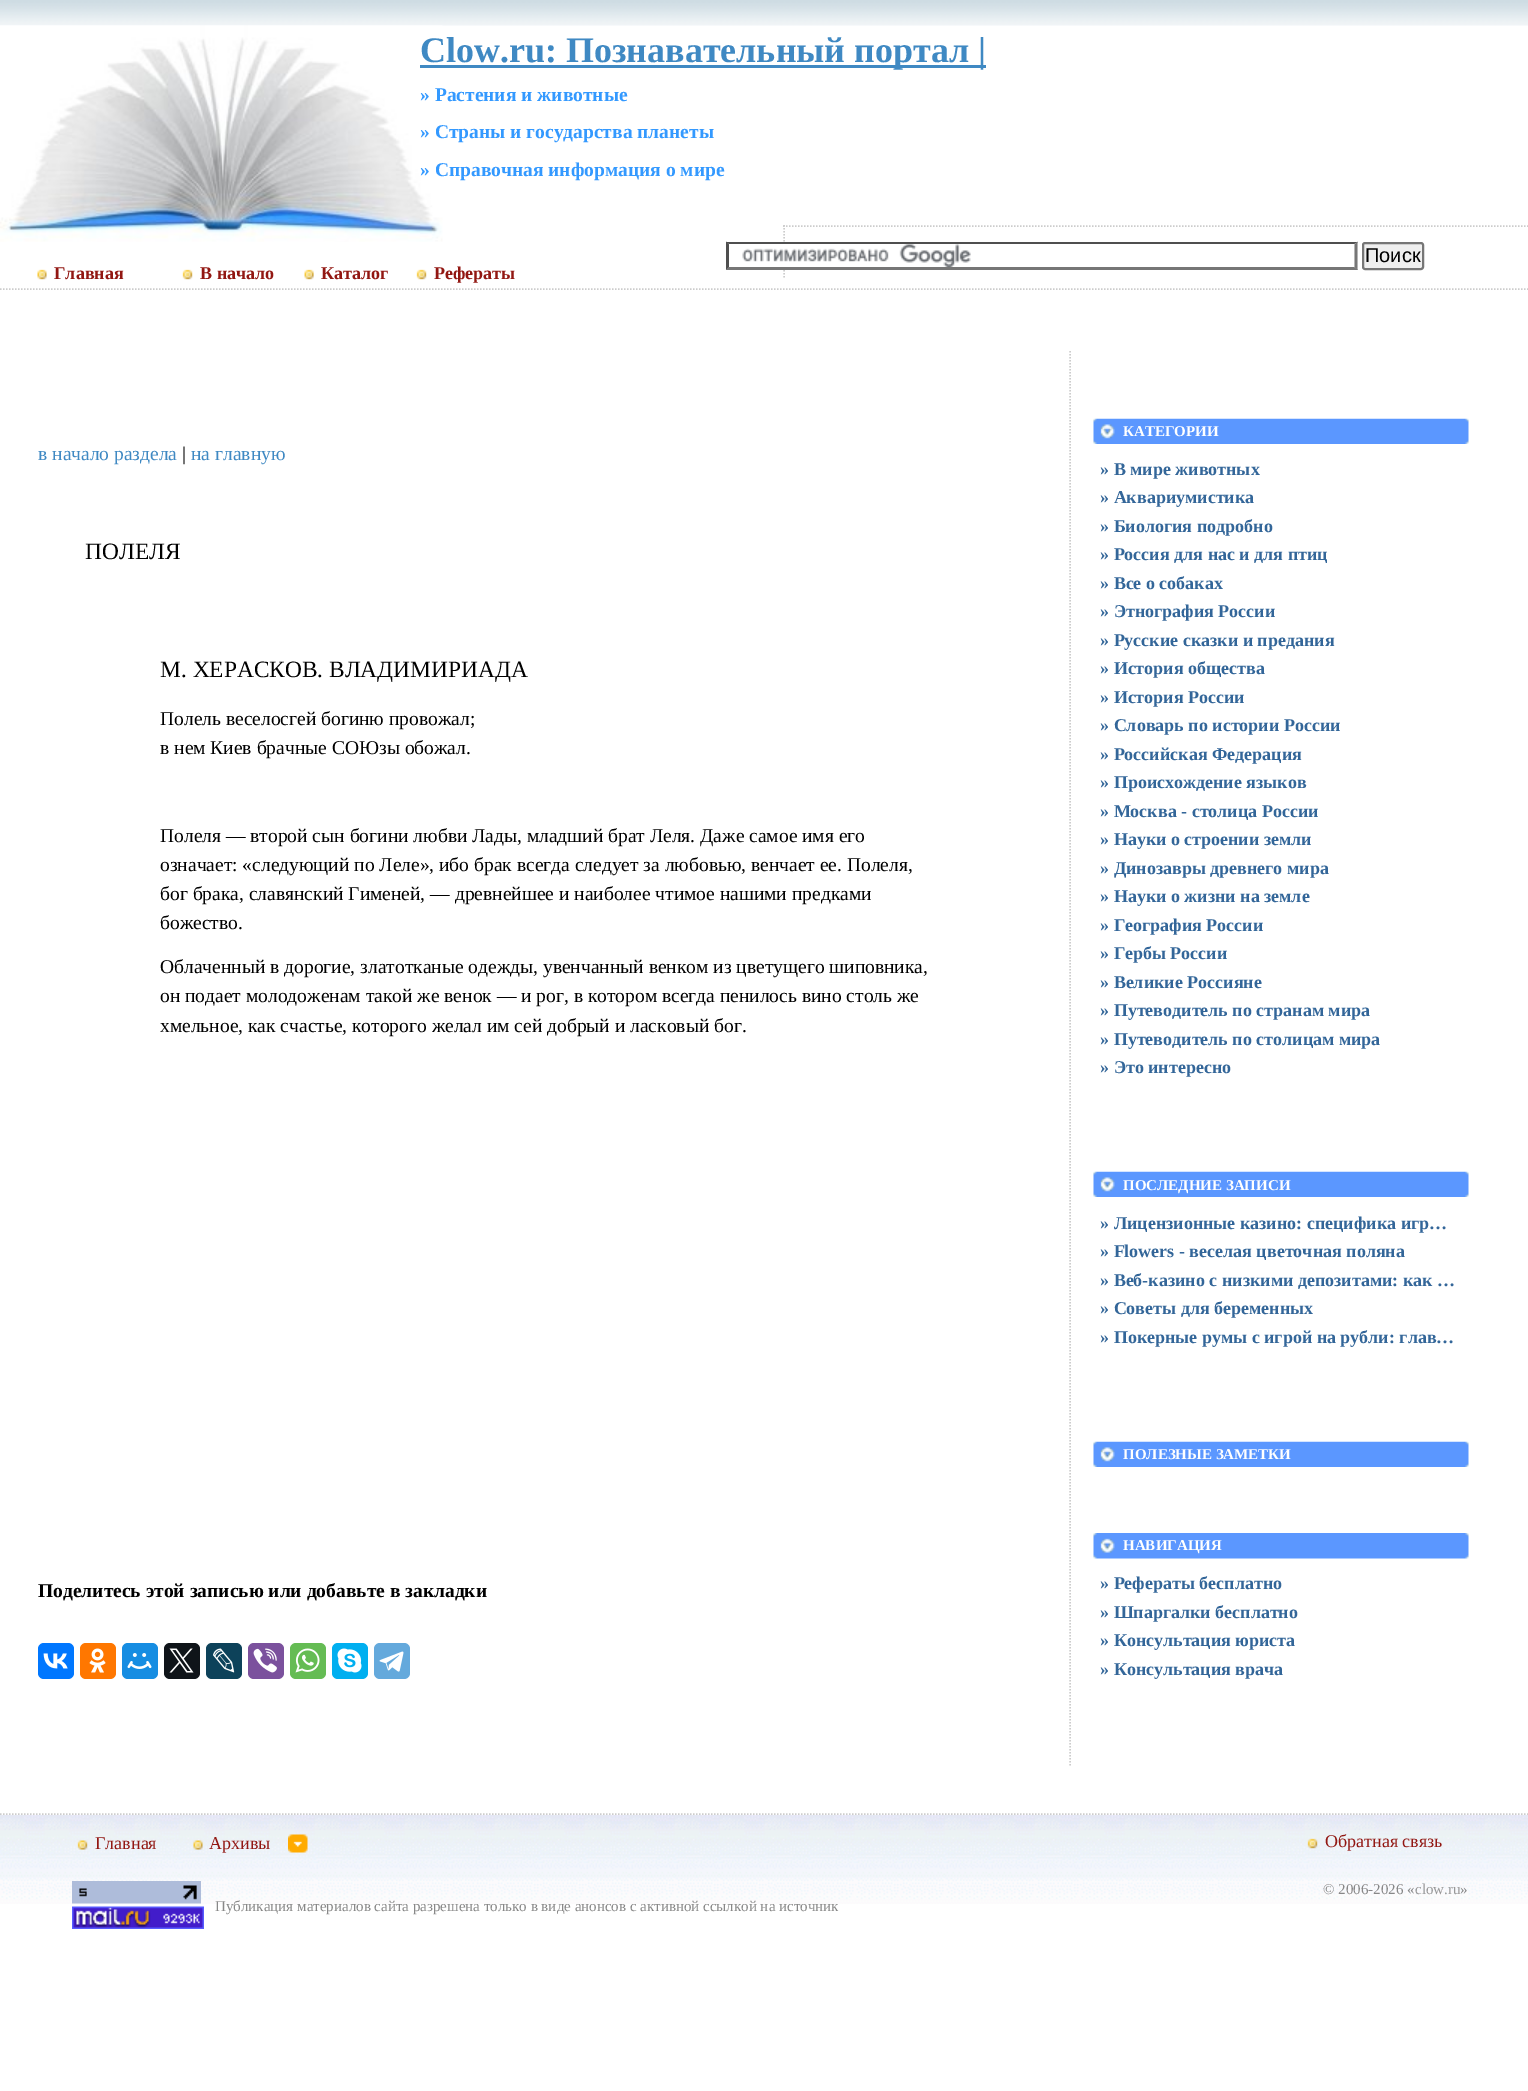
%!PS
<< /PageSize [1528 2091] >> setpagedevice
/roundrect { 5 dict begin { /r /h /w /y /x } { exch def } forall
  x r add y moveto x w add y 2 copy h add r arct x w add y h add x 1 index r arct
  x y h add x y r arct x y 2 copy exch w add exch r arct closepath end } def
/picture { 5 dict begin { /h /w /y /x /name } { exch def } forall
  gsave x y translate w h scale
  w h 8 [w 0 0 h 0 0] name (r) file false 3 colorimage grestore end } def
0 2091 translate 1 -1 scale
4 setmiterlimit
1 setgray
0 0 1528 2091 rectfill
(img1.rgb) 0 0 1528 26 picture
(img3.rgb) 0 25 443 217 picture
0.247 0.537 0.765 setrgbcolor
420 65 566 3 rectfill
/LiberationSerif-Bold [36 0 0 -36 0 0] selectfont
420 62 moveto (Clow.ru: Познавательный портал |) show
/LiberationSerif-Bold [19.5 0 0 -19.5 0 0] selectfont
0.2 0.6 1 setrgbcolor
420 101 moveto (» Растения и животные) show
420 138 moveto (» Страны и государства планеты) show
420 176 moveto (» Cправочная информация о мире) show
0.8 setgray
1.5 setlinewidth
[1.5 1.5] 0 setdash
newpath 0 289 moveto 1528.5 289 lineto stroke
newpath 783 226 moveto 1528.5 226 lineto stroke
newpath 784 225 moveto 784 277.5 lineto stroke
1 setgray
783 243 2 26 rectfill
(img2.rgb) 742 244 229 23 picture
0.31 setgray
newpath 726 242 moveto 1358 242 lineto 1354 244 lineto 729 244 lineto closepath fill
0.463 setgray
newpath 1357.5 241.5 moveto 1357.5 270 lineto 1354.5 267 lineto 1354.5 244.5 lineto closepath fill
newpath 1358 270 moveto 726 270 lineto 729 267 lineto 1354 267 lineto closepath fill
0.31 setgray
newpath 726 270 moveto 726 241.5 lineto 729 244.5 lineto 729 267 lineto closepath fill
0.937 setgray
1363 243 60 26 2 roundrect gsave fill grestore
0.463 setgray
2 setlinewidth
[] 0 setdash
stroke
/LiberationSans-Regular [20 0 0 -20 0 0] selectfont
0 setgray
1365 262 moveto (Поиск) show
(img4.rgb) 37 269 10 11 picture
/LiberationSerif-Bold [18 0 0 -18 0 0] selectfont
0.573 0.09 0.071 setrgbcolor
54 279 moveto (Главная) show
(img5.rgb) 182 269 11 11 picture
200 279 moveto (В начало) show
(img6.rgb) 304 269 10 11 picture
321 279 moveto (Каталог) show
(img7.rgb) 416 269 11 11 picture
434 279 moveto (Рефераты) show
0.8 setgray
1.5 setlinewidth
[1.5 1.5] 0 setdash
newpath 1070 351 moveto 1070 1765.5 lineto stroke
/LiberationSerif-Regular [19.5 0 0 -19.5 0 0] selectfont
0.247 0.537 0.765 setrgbcolor
38 460 moveto (в начало раздела) show
0 setgray
182 460 moveto (|) show
0.247 0.537 0.765 setrgbcolor
191 460 moveto (на главную) show
/LiberationSerif-Regular [23.4 0 0 -23.4 0 0] selectfont
0 setgray
85 559 moveto (ПОЛЕЛЯ) show
160 677 moveto (M. ХЕРАСКОВ. ВЛАДИМИРИАДА) show
/LiberationSerif-Regular [19.5 0 0 -19.5 0 0] selectfont
160 725 moveto (Полель веселосгей богиню провожал;) show
160 754 moveto (в нем Киев брачные СОЮзы обожал.) show
160 842 moveto (Полеля — второй сын богини любви Лады, младший брат Леля. Даже самое имя его) show
160 871 moveto (означает: «следующий по Леле», ибо брак всегда следует за любовью, венчает ее. Полеля,) show
160 900 moveto (бог брака, славянский Гименей, — древнейшее и наиболее чтимое нашими предками) show
160 929 moveto (божество.) show
160 973 moveto (Облаченный в дорогие, златотканые одежды, увенчанный венком из цветущего шиповника,) show
160 1002 moveto (он подает молодоженам такой же венок — и рог, в котором всегда пенилось вино столь же) show
160 1032 moveto (хмельное, как счастье, которого желал им сей добрый и ласковый бог.) show
/LiberationSerif-Bold [19.5 0 0 -19.5 0 0] selectfont
38 1597 moveto (Поделитесь этой записью или добавьте в закладки) show
0 0.467 1 setrgbcolor
38 1643 36 36 6 roundrect fill
(img8.rgb) 43 1653 25 16 picture
1 0.467 0 setrgbcolor
80 1643 36 36 6 roundrect fill
(img9.rgb) 89 1648 17 25 picture
0.086 0.553 0.886 setrgbcolor
122 1643 36 36 6 roundrect fill
(img10.rgb) 127 1653 25 16 picture
0.059 0.078 0.098 setrgbcolor
164 1643 36 36 6 roundrect fill
(img11.rgb) 169 1648 25 25 picture
0.051 0.259 0.353 setrgbcolor
206 1643 36 36 6 roundrect fill
(img12.rgb) 213 1648 22 25 picture
0.482 0.318 0.616 setrgbcolor
248 1643 36 36 6 roundrect fill
(img13.rgb) 253 1648 24 25 picture
0.396 0.737 0.329 setrgbcolor
290 1643 36 36 6 roundrect fill
(img14.rgb) 295 1648 25 25 picture
0 0.686 0.941 setrgbcolor
332 1643 36 36 6 roundrect fill
(img15.rgb) 337 1648 25 25 picture
0.392 0.663 0.863 setrgbcolor
374 1643 36 36 6 roundrect fill
(img16.rgb) 379 1651 25 21 picture
(img17.rgb) 1093 418 376 26 picture
/LiberationSerif-Bold [15 0 0 -15 0 0] selectfont
1 setgray
1123 436 moveto (КАТЕГОРИИ) show
/LiberationSerif-Bold [18 0 0 -18 0 0] selectfont
0.2 0.4 0.6 setrgbcolor
1100 475 moveto (» В мире животных) show
1100 503 moveto (» Аквариумистика) show
1100 532 moveto (» Биология подробно) show
1100 560 moveto (» Россия для нас и для птиц) show
1100 589 moveto (» Все о собаках) show
1100 617 moveto (» Этнография России) show
1100 646 moveto (» Русские сказки и предания) show
1100 674 moveto (» История общества) show
1100 703 moveto (» История России) show
1100 731 moveto (» Словарь по истории России) show
1100 760 moveto (» Российская Федерация) show
1100 788 moveto (» Происхождение языков) show
1100 817 moveto (» Москва - столица России) show
1100 845 moveto (» Науки о строении земли) show
1100 874 moveto (» Динозавры древнего мира) show
1100 902 moveto (» Науки о жизни на земле) show
1100 931 moveto (» География России) show
1100 959 moveto (» Гербы России) show
1100 988 moveto (» Великие Россияне) show
1100 1016 moveto (» Путеводитель по странам мира) show
1100 1045 moveto (» Путеводитель по столицам мира) show
1100 1073 moveto (» Это интересно) show
(img17.rgb) 1093 1171 376 26 picture
/LiberationSerif-Bold [15 0 0 -15 0 0] selectfont
1 setgray
1123 1190 moveto (ПОСЛЕДНИЕ ЗАПИСИ) show
/LiberationSerif-Bold [18 0 0 -18 0 0] selectfont
0.2 0.4 0.6 setrgbcolor
1100 1229 moveto (» Лицензионные казино: специфика игр…) show
1100 1257 moveto (» Flowers - веселая цветочная поляна) show
1100 1286 moveto (» Веб-казино с низкими депозитами: как …) show
1100 1314 moveto (» Советы для беременных) show
1100 1343 moveto (» Покерные румы с игрой на рубли: глав…) show
(img17.rgb) 1093 1441 376 26 picture
/LiberationSerif-Bold [15 0 0 -15 0 0] selectfont
1 setgray
1123 1459 moveto (ПОЛЕЗНЫЕ ЗАМЕТКИ) show
(img18.rgb) 1093 1533 376 26 picture
1123 1550 moveto (НАВИГАЦИЯ) show
/LiberationSerif-Bold [18 0 0 -18 0 0] selectfont
0.2 0.4 0.6 setrgbcolor
1100 1589 moveto (» Рефераты бесплатно) show
1100 1618 moveto (» Шпаргалки бесплатно) show
1100 1646 moveto (» Консультация юриста) show
1100 1675 moveto (» Консультация врача) show
0.8 setgray
newpath 0 1814 moveto 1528.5 1814 lineto stroke
(img19.rgb) 0 1815 1528 89 picture
(img20.rgb) 77 1840 11 10 picture
/LiberationSerif-Regular [18 0 0 -18 0 0] selectfont
0.573 0.09 0.071 setrgbcolor
95 1849 moveto (Главная) show
(img21.rgb) 288 1834 20 19 picture
(img22.rgb) 193 1840 10 10 picture
209 1849 moveto (Архивы) show
(img23.rgb) 1307 1838 11 11 picture
1325 1847 moveto (Обратная связь) show
(img24.rgb) 72 1881 129 23 picture
(img25.rgb) 72 1906 132 23 picture
/LiberationSerif-Regular [15 0 0 -15 0 0] selectfont
0.533 setgray
1323 1894 moveto (© 2006-2026 «) show
0.6 setgray
1415 1894 moveto (clow.ru) show
0.533 setgray
1460 1894 moveto (») show
215 1911 moveto (Публикация материалов сайта разрешена только в виде анонсов с активной ссылкой на источник) show
showpage
